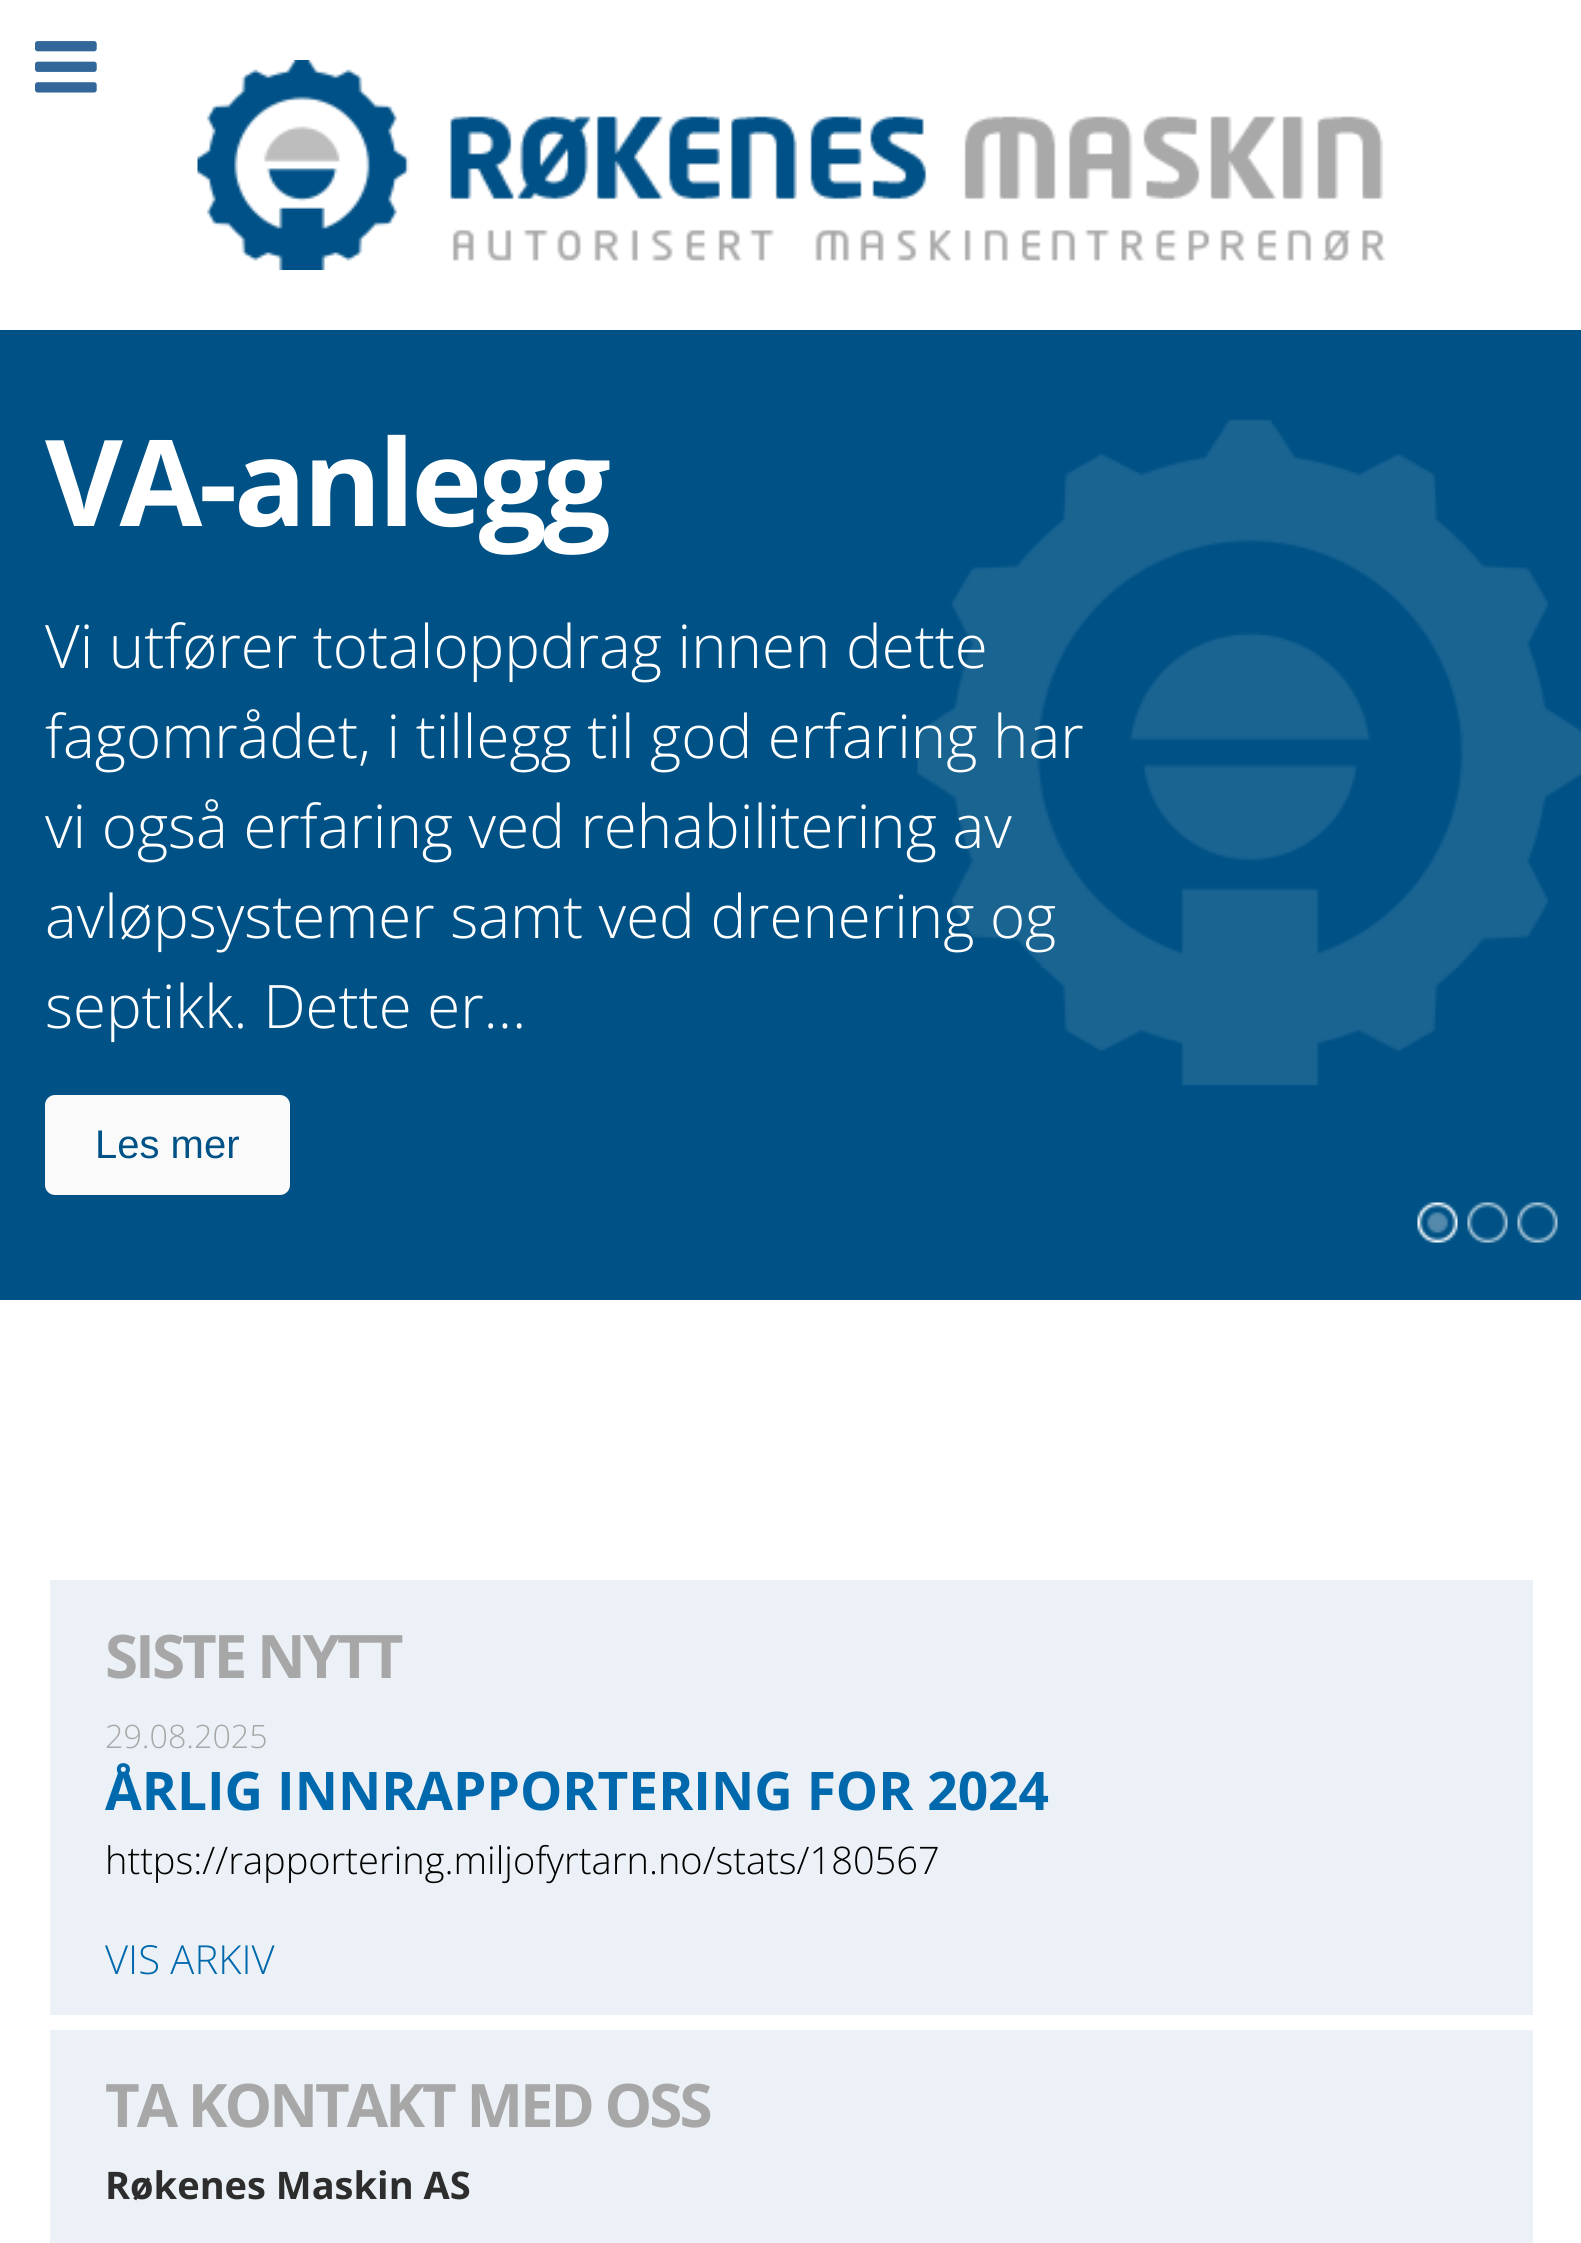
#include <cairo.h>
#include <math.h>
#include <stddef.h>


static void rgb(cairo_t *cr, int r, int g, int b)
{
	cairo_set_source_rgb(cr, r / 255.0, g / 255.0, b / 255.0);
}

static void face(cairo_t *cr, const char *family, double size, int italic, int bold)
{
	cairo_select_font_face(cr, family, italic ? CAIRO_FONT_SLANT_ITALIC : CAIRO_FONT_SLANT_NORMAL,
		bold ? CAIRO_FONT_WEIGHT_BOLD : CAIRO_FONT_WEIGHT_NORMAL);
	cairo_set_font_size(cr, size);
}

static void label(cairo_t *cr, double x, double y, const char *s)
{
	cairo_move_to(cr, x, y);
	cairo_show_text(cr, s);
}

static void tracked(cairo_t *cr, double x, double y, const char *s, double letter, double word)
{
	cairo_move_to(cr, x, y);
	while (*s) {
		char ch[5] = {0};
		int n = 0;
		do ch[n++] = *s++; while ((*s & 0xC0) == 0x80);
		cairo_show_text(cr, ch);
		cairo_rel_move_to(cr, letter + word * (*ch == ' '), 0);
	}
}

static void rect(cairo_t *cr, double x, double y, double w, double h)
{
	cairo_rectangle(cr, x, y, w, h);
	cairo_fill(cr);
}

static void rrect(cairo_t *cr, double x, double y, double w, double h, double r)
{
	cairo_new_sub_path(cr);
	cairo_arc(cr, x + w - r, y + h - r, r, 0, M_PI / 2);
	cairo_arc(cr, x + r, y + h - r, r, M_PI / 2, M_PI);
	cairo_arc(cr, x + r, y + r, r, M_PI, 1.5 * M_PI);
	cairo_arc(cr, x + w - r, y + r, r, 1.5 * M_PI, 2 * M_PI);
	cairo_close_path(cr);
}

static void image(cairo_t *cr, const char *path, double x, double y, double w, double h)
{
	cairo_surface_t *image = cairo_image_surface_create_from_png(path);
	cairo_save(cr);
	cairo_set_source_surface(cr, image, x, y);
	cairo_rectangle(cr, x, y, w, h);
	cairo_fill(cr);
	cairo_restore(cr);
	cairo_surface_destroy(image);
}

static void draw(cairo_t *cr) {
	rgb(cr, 255, 255, 255);
	cairo_paint(cr);
	image(cr, "image0.png", 35, 41, 62, 52);
	image(cr, "image1.png", 197, 60, 1188, 210);
	rgb(cr, 0, 82, 134);
	rect(cr, 0, 330, 1581, 970);
	image(cr, "image2.png", 917, 419, 664, 667);
	face(cr, "Open Sans", 120, 0, 1);
	rgb(cr, 255, 255, 255);
	tracked(cr, 45, 526, "VA-anlegg", -3.5, 0);
	face(cr, "Open Sans Light", 60, 0, 0);
	label(cr, 45, 668, "Vi utfører totaloppdrag innen dette");
	label(cr, 45, 758, "fagområdet, i tillegg til god erfaring har");
	label(cr, 45, 848, "vi også erfaring ved rehabilitering av");
	label(cr, 45, 938, "avløpsystemer samt ved drenering og");
	label(cr, 45, 1028, "septikk. Dette er...");
	rgb(cr, 250, 250, 250);
	rrect(cr, 45, 1095, 245, 100, 10);
	cairo_fill(cr);
	face(cr, "Liberation Sans", 40, 0, 0);
	rgb(cr, 0, 82, 134);
	label(cr, 95, 1158, "Les mer");
	image(cr, "image3.png", 1417, 1202, 41, 41);
	image(cr, "image4.png", 1467, 1202, 41, 41);
	image(cr, "image4.png", 1517, 1202, 41, 41);
	rgb(cr, 235, 241, 246);
	rect(cr, 50, 1580, 1483, 435);
	face(cr, "Open Sans", 60, 0, 1);
	rgb(cr, 168, 167, 167);
	tracked(cr, 105, 1678, "SISTE NYTT", -3, 0);
	face(cr, "Open Sans Light", 32.25, 0, 0);
	label(cr, 105, 1748, "29.08.2025");
	face(cr, "Open Sans", 53.25, 0, 1);
	rgb(cr, 0, 104, 172);
	label(cr, 105, 1810, "ÅRLIG INNRAPPORTERING FOR 2024");
	face(cr, "Open Sans Light", 38, 0, 0);
	rgb(cr, 0, 0, 0);
	label(cr, 105, 1874, "https://rapportering.miljofyrtarn.no/stats/180567");
	face(cr, "Open Sans Light", 40, 0, 0);
	rgb(cr, 0, 104, 172);
	label(cr, 105, 1974, "VIS ARKIV");
	rgb(cr, 235, 241, 246);
	rect(cr, 50, 2030, 1483, 213);
	face(cr, "Open Sans", 60, 0, 1);
	rgb(cr, 168, 167, 167);
	tracked(cr, 105, 2127, "TA KONTAKT MED OSS", -3, 0);
	face(cr, "Open Sans", 38, 0, 1);
	rgb(cr, 45, 45, 45);
	label(cr, 105, 2199, "Røkenes Maskin AS");
}

int main(void) {
	cairo_surface_t *surface = cairo_image_surface_create(CAIRO_FORMAT_RGB24, 1581, 2243);
	cairo_t *cr = cairo_create(surface);
	cairo_font_options_t *options = cairo_font_options_create();
	cairo_font_options_set_hint_metrics(options, CAIRO_HINT_METRICS_OFF);
	cairo_font_options_set_hint_style(options, CAIRO_HINT_STYLE_NONE);
	cairo_set_font_options(cr, options);
	cairo_set_miter_limit(cr, 4);
	draw(cr);
	cairo_surface_write_to_png(surface, "render.png");
	cairo_font_options_destroy(options);
	cairo_destroy(cr);
	cairo_surface_destroy(surface);
	return 0;
}
